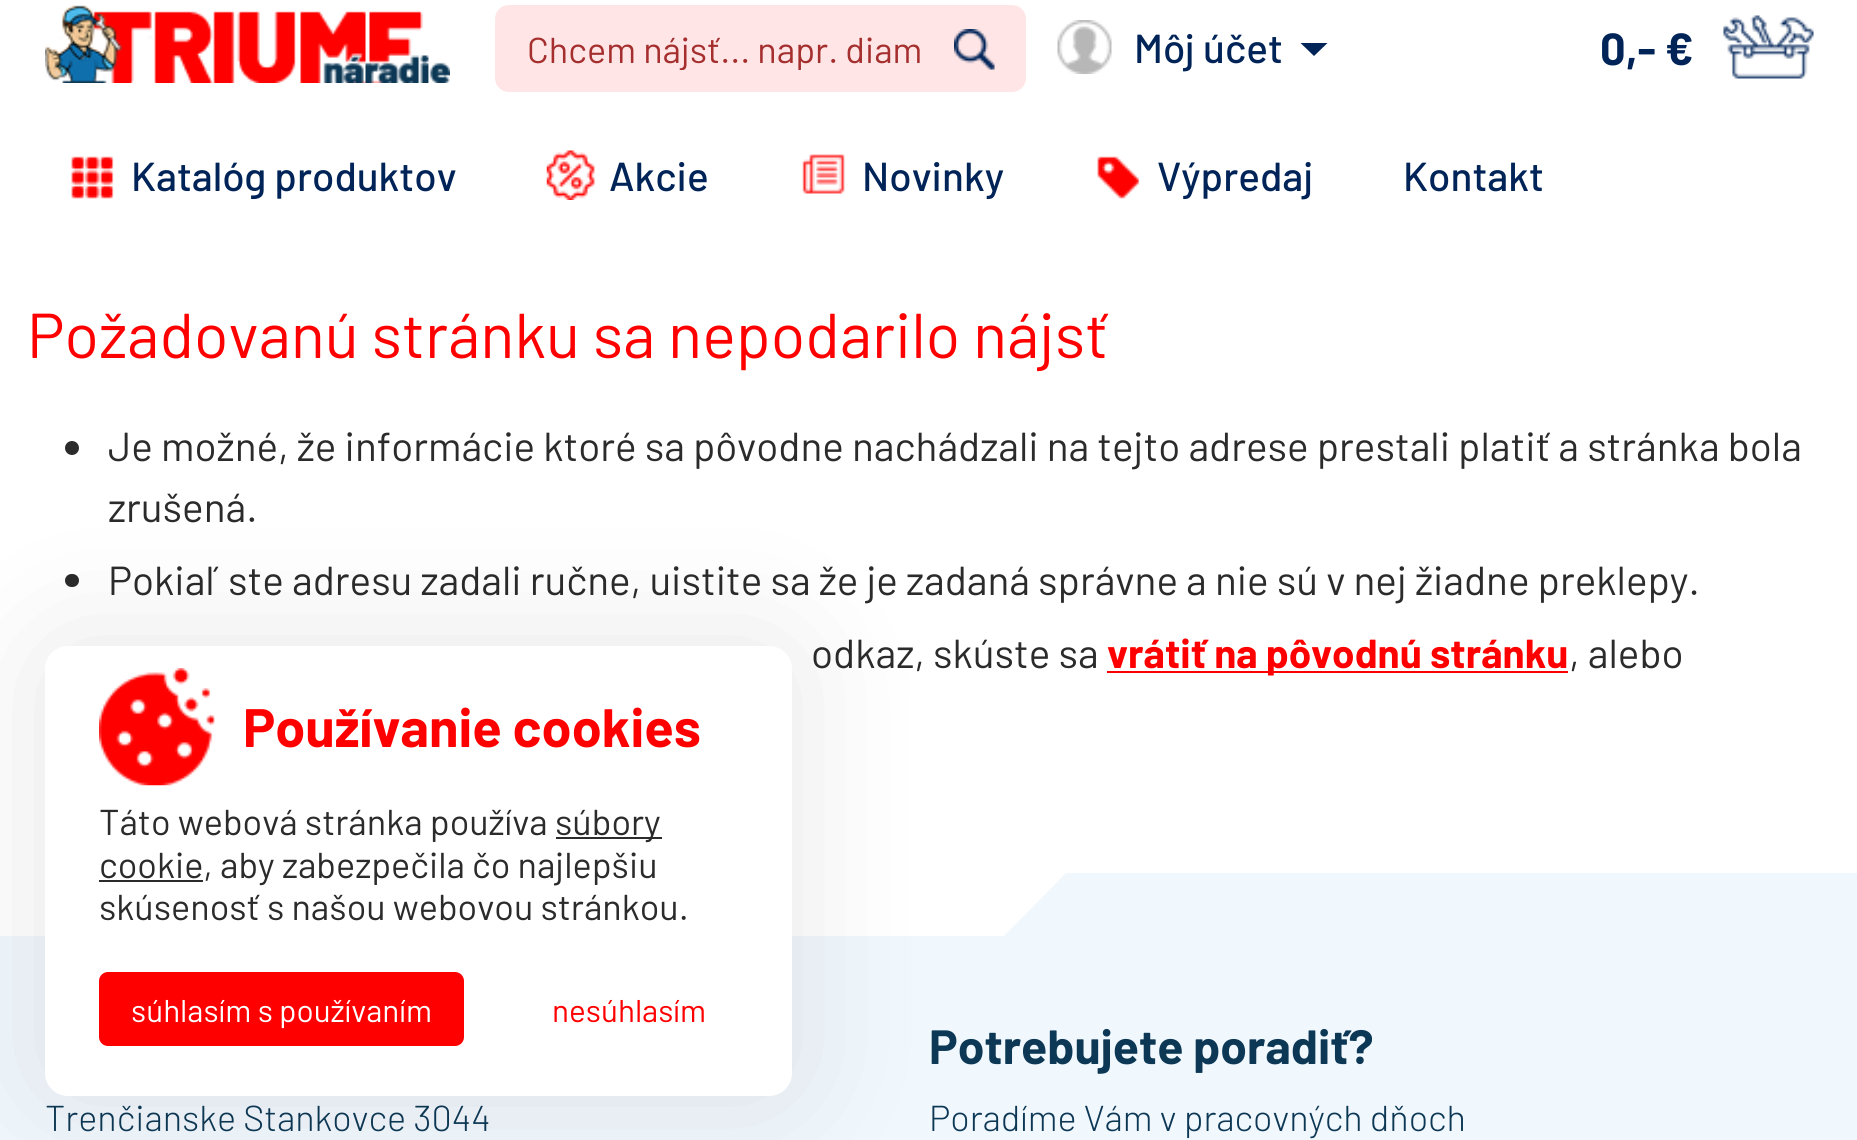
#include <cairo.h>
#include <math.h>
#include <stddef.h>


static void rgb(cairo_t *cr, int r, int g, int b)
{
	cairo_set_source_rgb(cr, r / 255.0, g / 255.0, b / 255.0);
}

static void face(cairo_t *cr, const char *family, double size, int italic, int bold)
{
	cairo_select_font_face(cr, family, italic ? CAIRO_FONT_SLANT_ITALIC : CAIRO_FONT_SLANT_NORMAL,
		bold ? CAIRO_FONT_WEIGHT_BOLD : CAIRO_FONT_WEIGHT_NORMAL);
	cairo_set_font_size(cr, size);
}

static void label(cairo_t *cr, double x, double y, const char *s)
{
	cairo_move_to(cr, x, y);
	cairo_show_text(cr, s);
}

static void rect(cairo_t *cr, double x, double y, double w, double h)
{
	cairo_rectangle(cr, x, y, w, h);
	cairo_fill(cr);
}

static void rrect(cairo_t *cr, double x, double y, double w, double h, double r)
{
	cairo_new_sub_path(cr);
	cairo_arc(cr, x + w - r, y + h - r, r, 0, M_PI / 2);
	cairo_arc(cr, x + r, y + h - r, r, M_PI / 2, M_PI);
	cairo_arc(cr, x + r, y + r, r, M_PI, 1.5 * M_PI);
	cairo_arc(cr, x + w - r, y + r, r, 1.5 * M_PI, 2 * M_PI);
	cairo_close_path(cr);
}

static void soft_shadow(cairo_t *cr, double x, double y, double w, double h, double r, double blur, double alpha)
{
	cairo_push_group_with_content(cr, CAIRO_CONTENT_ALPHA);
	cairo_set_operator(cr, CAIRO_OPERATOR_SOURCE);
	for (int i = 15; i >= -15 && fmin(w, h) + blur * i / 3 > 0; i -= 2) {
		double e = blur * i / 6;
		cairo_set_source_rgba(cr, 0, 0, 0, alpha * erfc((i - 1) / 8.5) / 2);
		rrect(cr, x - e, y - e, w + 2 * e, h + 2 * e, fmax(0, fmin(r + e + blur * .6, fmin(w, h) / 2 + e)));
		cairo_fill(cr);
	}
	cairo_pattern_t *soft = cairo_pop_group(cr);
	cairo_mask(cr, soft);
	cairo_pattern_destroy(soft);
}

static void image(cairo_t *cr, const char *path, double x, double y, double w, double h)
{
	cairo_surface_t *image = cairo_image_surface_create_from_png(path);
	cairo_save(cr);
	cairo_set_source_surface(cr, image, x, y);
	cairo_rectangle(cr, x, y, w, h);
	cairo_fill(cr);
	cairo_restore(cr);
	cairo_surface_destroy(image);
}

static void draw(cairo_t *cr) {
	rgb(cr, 255, 255, 255);
	cairo_paint(cr);
	image(cr, "image0.png", 45, 5, 405, 78);
	rgb(cr, 255, 229, 229);
	rrect(cr, 495, 5, 531, 87, 14);
	cairo_fill(cr);
	cairo_save(cr);
	cairo_rectangle(cr, 527, 27, 400, 43);
	cairo_clip(cr);
	face(cr, "Barlow", 36, 0, 0);
	rgb(cr, 165, 47, 47);
	label(cr, 527, 63, "Chcem nájsť... napr. diam");
	cairo_restore(cr);
	image(cr, "image1.png", 954, 29, 41, 41);
	image(cr, "image2.png", 1057, 20, 55, 54);
	face(cr, "Barlow Medium", 40.5, 0, 0);
	rgb(cr, 0, 36, 88);
	label(cr, 1134, 63, "Môj účet");
	cairo_new_path(cr);
	cairo_move_to(cr, 1300.5, 43);
	cairo_line_to(cr, 1327.5, 43);
	cairo_line_to(cr, 1314, 56);
	cairo_close_path(cr);
	cairo_fill(cr);
	face(cr, "Barlow", 45, 0, 1);
	label(cr, 1600, 65, "0,- €");
	image(cr, "image3.png", 1723, 15, 91, 64);
	image(cr, "image4.png", 71, 156, 43, 43);
	face(cr, "Barlow Medium", 40.5, 0, 0);
	label(cr, 131, 191, "Katalóg produktov");
	image(cr, "image5.png", 546, 150, 49, 50);
	label(cr, 609, 191, "Akcie");
	image(cr, "image6.png", 802, 154, 43, 40);
	label(cr, 862, 191, "Novinky");
	image(cr, "image7.png", 1097, 156, 43, 43);
	label(cr, 1157, 191, "Výpredaj");
	label(cr, 1403, 191, "Kontakt");
	face(cr, "Barlow", 63.25, 0, 0);
	rgb(cr, 255, 0, 0);
	label(cr, 27, 358, "Požadovanú stránku sa nepodarilo nájsť");
	rgb(cr, 43, 43, 43);
	cairo_new_path(cr);
	cairo_arc(cr, 72, 448, 7, 0, 2 * M_PI);
	cairo_fill(cr);
	face(cr, "Barlow", 40.5, 0, 0);
	label(cr, 108, 461, "Je možné, že informácie ktoré sa pôvodne nachádzali na tejto adrese prestali platiť a stránka bola");
	label(cr, 108, 522, "zrušená.");
	rrect(cr, 65, 574, 14, 13, 6.5);
	cairo_fill(cr);
	label(cr, 108, 595, "Pokiaľ ste adresu zadali ručne, uistite sa že je zadaná správne a nie sú v nej žiadne preklepy.");
	label(cr, 811, 668, "odkaz, skúste sa");
	rgb(cr, 255, 0, 0);
	rect(cr, 1107, 671, 461, 2);
	face(cr, "Barlow", 40.5, 0, 1);
	label(cr, 1107, 668, "vrátiť na pôvodnú stránku");
	face(cr, "Barlow", 40.5, 0, 0);
	rgb(cr, 43, 43, 43);
	label(cr, 1569, 668, ", alebo");
	rgb(cr, 240, 247, 253);
	cairo_new_path(cr);
	cairo_move_to(cr, 0, 936);
	cairo_line_to(cr, 0, 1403);
	cairo_line_to(cr, 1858, 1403);
	cairo_line_to(cr, 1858, 873);
	cairo_line_to(cr, 1066, 873);
	cairo_line_to(cr, 1004, 936);
	cairo_close_path(cr);
	cairo_fill(cr);
	face(cr, "Barlow Light", 36, 0, 0);
	rgb(cr, 13, 56, 85);
	label(cr, 45, 1131, "Trenčianske Stankovce 3044");
	face(cr, "Barlow", 48, 0, 1);
	label(cr, 929, 1064, "Potrebujete poradiť?");
	face(cr, "Barlow Light", 36, 0, 0);
	label(cr, 929, 1131, "Poradíme Vám v pracovných dňoch");
	rgb(cr, 0, 0, 0);
	soft_shadow(cr, 45, 646, 747, 450, 23, 65, 0.1);
	rgb(cr, 255, 255, 255);
	rrect(cr, 45, 646, 747, 450, 23);
	cairo_fill(cr);
	image(cr, "image8.png", 99, 668, 116, 118);
	face(cr, "Barlow", 54, 0, 1);
	rgb(cr, 255, 0, 0);
	label(cr, 243, 747, "Používanie cookies");
	face(cr, "Barlow", 36, 0, 0);
	rgb(cr, 43, 43, 43);
	label(cr, 99, 835, "Táto webová stránka používa");
	rect(cr, 556, 837, 106, 2);
	label(cr, 555, 835, "súbory");
	rect(cr, 99, 880, 104, 2);
	label(cr, 99, 878, "cookie, aby zabezpečila čo najlepšiu");
	label(cr, 99, 920, "skúsenosť s našou webovou stránkou.");
	rgb(cr, 255, 0, 0);
	rrect(cr, 99, 972, 365, 74, 9);
	cairo_fill(cr);
	face(cr, "Barlow", 31.5, 0, 0);
	rgb(cr, 255, 255, 255);
	label(cr, 131, 1022, "súhlasím s používaním");
	rgb(cr, 255, 0, 0);
	label(cr, 552, 1022, "nesúhlasím");
}

int main(void) {
	cairo_surface_t *surface = cairo_image_surface_create(CAIRO_FORMAT_RGB24, 1857, 1140);
	cairo_t *cr = cairo_create(surface);
	cairo_font_options_t *options = cairo_font_options_create();
	cairo_font_options_set_hint_metrics(options, CAIRO_HINT_METRICS_OFF);
	cairo_font_options_set_hint_style(options, CAIRO_HINT_STYLE_NONE);
	cairo_set_font_options(cr, options);
	cairo_set_miter_limit(cr, 4);
	draw(cr);
	cairo_surface_write_to_png(surface, "render.png");
	cairo_font_options_destroy(options);
	cairo_destroy(cr);
	cairo_surface_destroy(surface);
	return 0;
}
